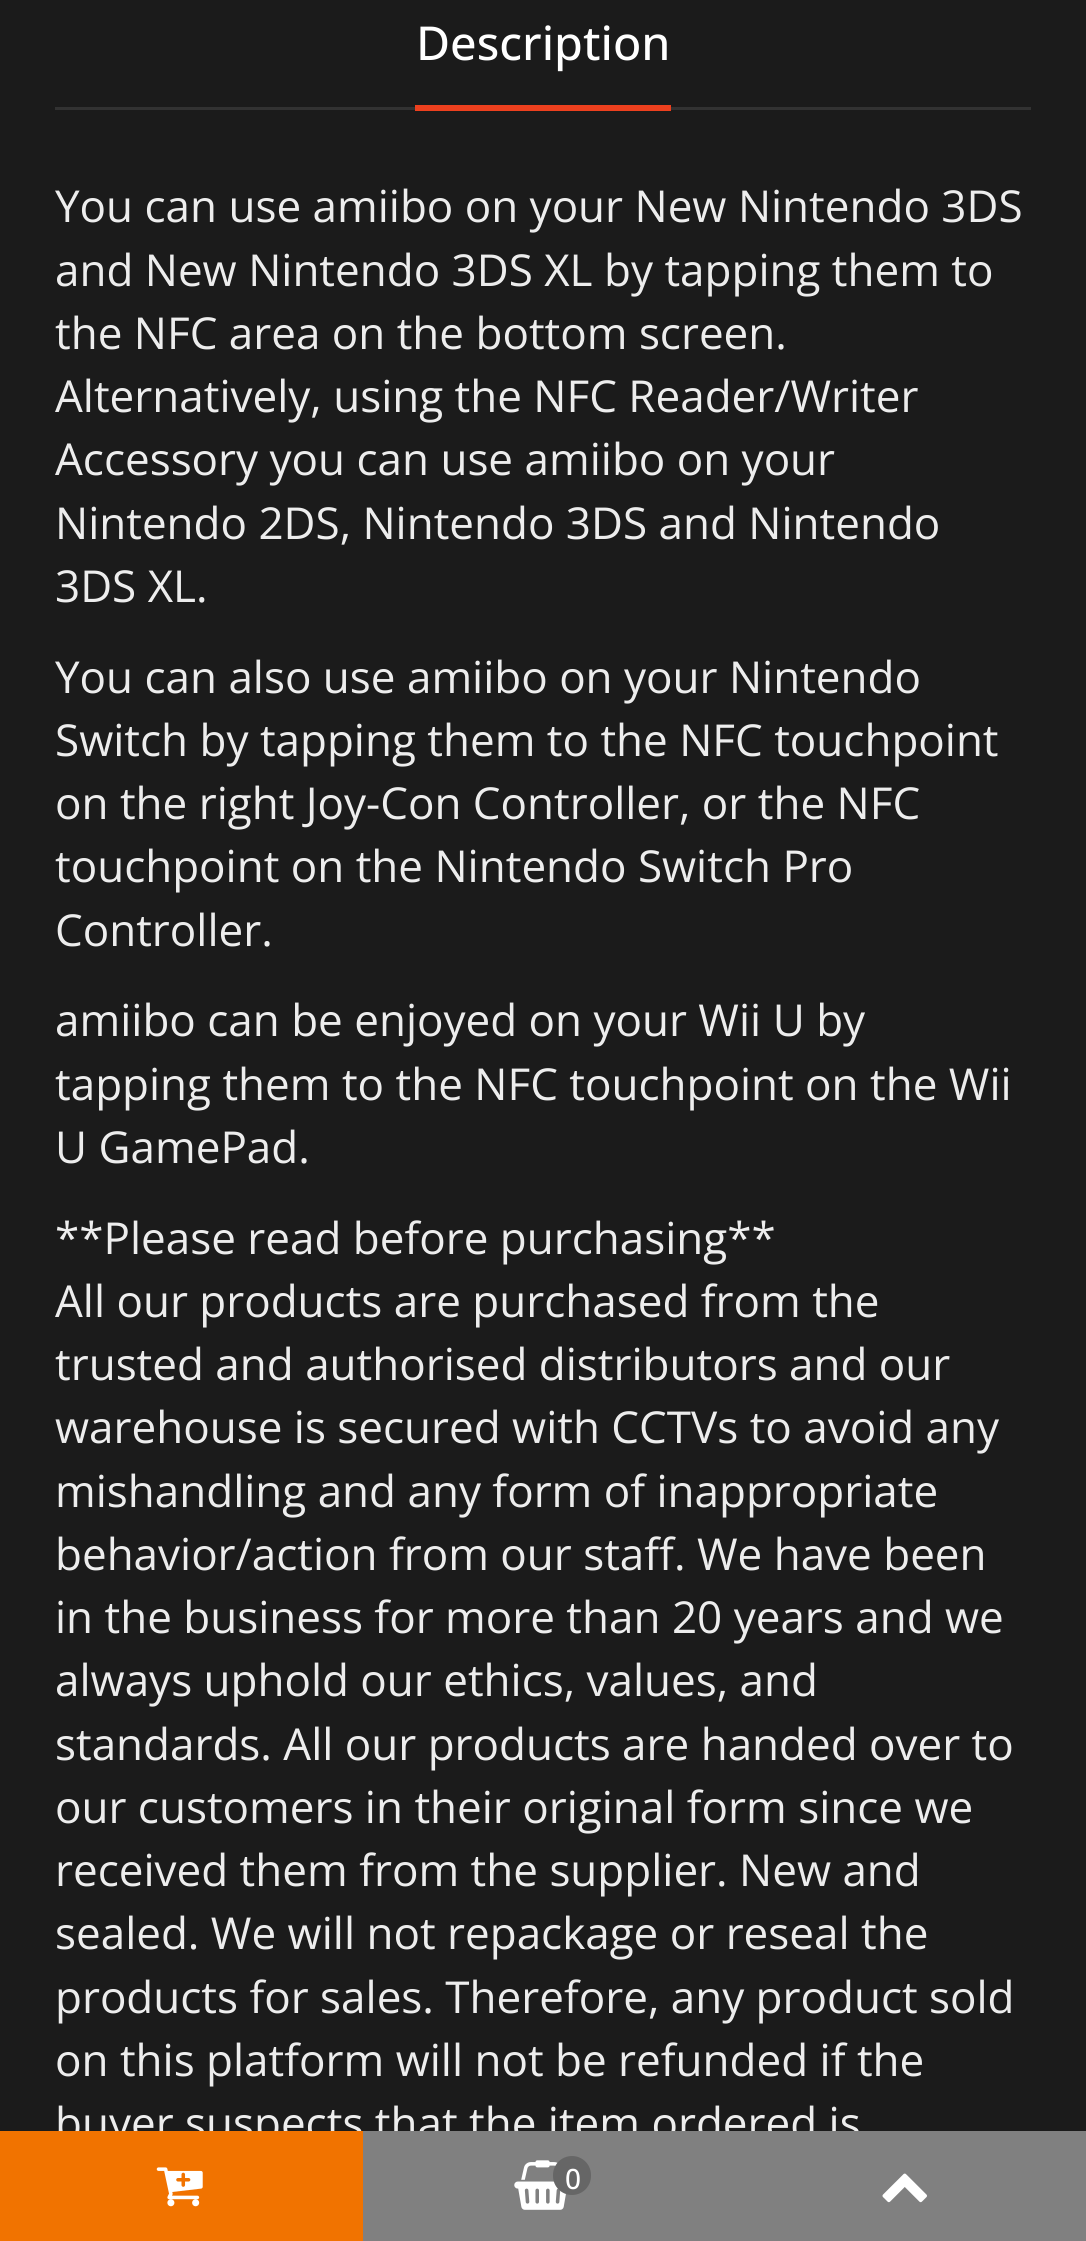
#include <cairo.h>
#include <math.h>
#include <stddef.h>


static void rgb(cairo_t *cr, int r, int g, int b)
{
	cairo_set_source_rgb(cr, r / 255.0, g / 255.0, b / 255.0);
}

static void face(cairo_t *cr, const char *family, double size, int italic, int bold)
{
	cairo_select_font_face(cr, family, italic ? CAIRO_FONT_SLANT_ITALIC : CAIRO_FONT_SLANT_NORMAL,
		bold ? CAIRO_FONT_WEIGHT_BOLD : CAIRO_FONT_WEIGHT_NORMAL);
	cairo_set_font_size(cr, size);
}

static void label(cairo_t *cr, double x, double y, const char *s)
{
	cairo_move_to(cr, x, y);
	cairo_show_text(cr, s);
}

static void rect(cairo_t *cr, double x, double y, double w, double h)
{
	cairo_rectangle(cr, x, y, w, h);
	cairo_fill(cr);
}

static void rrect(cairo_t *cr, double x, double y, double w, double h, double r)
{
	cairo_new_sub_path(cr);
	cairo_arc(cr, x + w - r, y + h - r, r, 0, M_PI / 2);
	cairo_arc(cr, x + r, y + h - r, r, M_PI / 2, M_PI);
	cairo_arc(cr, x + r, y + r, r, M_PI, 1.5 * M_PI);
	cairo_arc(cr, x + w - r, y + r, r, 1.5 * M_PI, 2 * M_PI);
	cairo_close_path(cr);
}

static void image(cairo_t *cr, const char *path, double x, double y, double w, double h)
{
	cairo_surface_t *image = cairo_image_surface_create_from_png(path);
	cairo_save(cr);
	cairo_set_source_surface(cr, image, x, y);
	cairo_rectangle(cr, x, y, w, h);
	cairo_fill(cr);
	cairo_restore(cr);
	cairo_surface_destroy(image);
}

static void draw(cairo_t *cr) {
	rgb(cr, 27, 27, 27);
	cairo_paint(cr);
	face(cr, "Open Sans Medium", 46.75, 0, 0);
	rgb(cr, 255, 255, 255);
	label(cr, 416, 60, "Description");
	rgb(cr, 50, 50, 50);
	rect(cr, 55, 107, 976, 3);
	rgb(cr, 237, 64, 30);
	rect(cr, 415, 105, 256, 6);
	face(cr, "Open Sans", 44, 0, 0);
	rgb(cr, 237, 237, 237);
	label(cr, 55, 222, "You can use amiibo on your New Nintendo 3DS");
	label(cr, 55, 286, "and New Nintendo 3DS XL by tapping them to");
	label(cr, 55, 349, "the NFC area on the bottom screen.");
	label(cr, 55, 412, "Alternatively, using the NFC Reader/Writer");
	label(cr, 55, 475, "Accessory you can use amiibo on your");
	label(cr, 55, 539, "Nintendo 2DS, Nintendo 3DS and Nintendo");
	label(cr, 55, 602, "3DS XL.");
	label(cr, 55, 693, "You can also use amiibo on your Nintendo");
	label(cr, 55, 756, "Switch by tapping them to the NFC touchpoint");
	label(cr, 55, 819, "on the right Joy-Con Controller, or the NFC");
	label(cr, 55, 882, "touchpoint on the Nintendo Switch Pro");
	label(cr, 55, 946, "Controller.");
	label(cr, 55, 1036, "amiibo can be enjoyed on your Wii U by");
	label(cr, 55, 1100, "tapping them to the NFC touchpoint on the Wii");
	label(cr, 55, 1163, "U GamePad.");
	label(cr, 55, 1254, "**Please read before purchasing**");
	label(cr, 55, 1317, "All our products are purchased from the");
	label(cr, 55, 1380, "trusted and authorised distributors and our");
	label(cr, 55, 1443, "warehouse is secured with CCTVs to avoid any");
	label(cr, 55, 1507, "mishandling and any form of inappropriate");
	label(cr, 55, 1570, "behavior/action from our staff. We have been");
	label(cr, 55, 1633, "in the business for more than 20 years and we");
	label(cr, 55, 1696, "always uphold our ethics, values, and");
	label(cr, 55, 1760, "standards. All our products are handed over to");
	label(cr, 55, 1823, "our customers in their original form since we");
	label(cr, 55, 1886, "received them from the supplier. New and");
	label(cr, 55, 1949, "sealed. We will not repackage or reseal the");
	label(cr, 55, 2013, "products for sales. Therefore, any product sold");
	label(cr, 55, 2076, "on this platform will not be refunded if the");
	label(cr, 55, 2139, "buyer suspects that the item ordered is");
	rgb(cr, 241, 115, 0);
	rect(cr, 0, 2131, 363, 110);
	image(cr, "image0.png", 156, 2167, 47, 40);
	rgb(cr, 128, 128, 128);
	rect(cr, 363, 2131, 723, 110);
	image(cr, "image1.png", 882, 2173, 45, 30);
	image(cr, "image2.png", 514, 2160, 52, 50);
	rgb(cr, 102, 102, 102);
	rrect(cr, 553, 2156, 38, 39, 19);
	cairo_fill(cr);
	face(cr, "Open Sans Medium", 28, 0, 0);
	rgb(cr, 255, 255, 255);
	label(cr, 565, 2189, "0");
}

int main(void) {
	cairo_surface_t *surface = cairo_image_surface_create(CAIRO_FORMAT_RGB24, 1086, 2241);
	cairo_t *cr = cairo_create(surface);
	cairo_font_options_t *options = cairo_font_options_create();
	cairo_font_options_set_hint_metrics(options, CAIRO_HINT_METRICS_OFF);
	cairo_font_options_set_hint_style(options, CAIRO_HINT_STYLE_NONE);
	cairo_set_font_options(cr, options);
	cairo_set_miter_limit(cr, 4);
	draw(cr);
	cairo_surface_write_to_png(surface, "render.png");
	cairo_font_options_destroy(options);
	cairo_destroy(cr);
	cairo_surface_destroy(surface);
	return 0;
}
